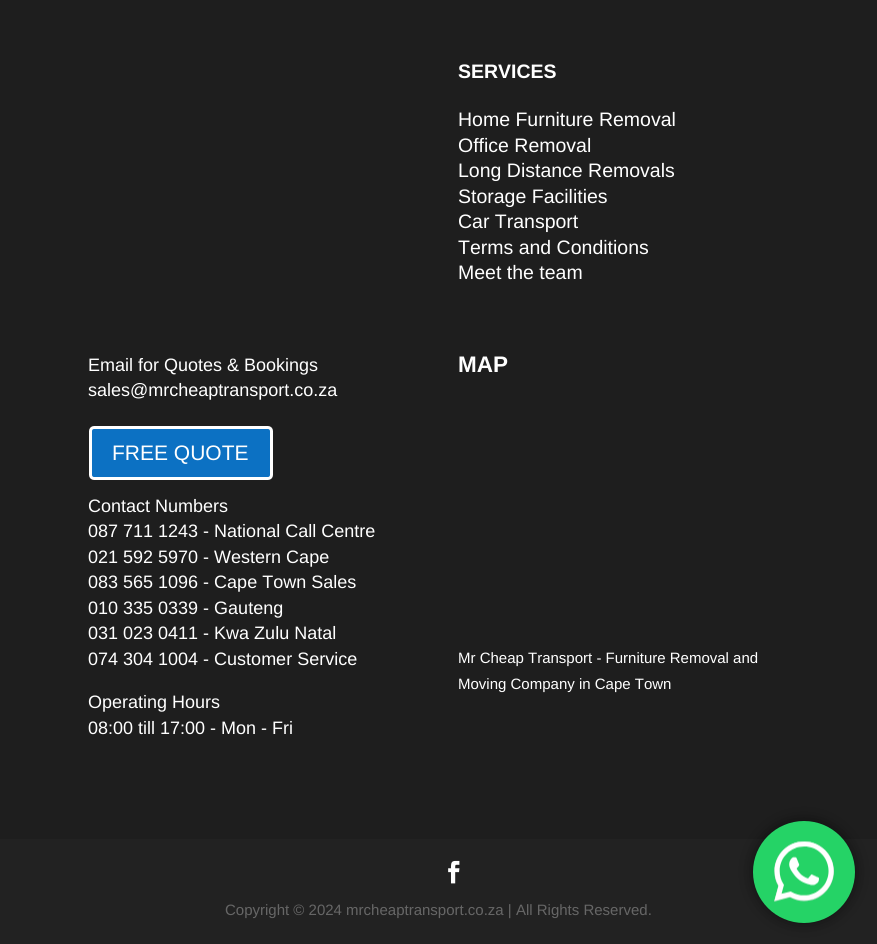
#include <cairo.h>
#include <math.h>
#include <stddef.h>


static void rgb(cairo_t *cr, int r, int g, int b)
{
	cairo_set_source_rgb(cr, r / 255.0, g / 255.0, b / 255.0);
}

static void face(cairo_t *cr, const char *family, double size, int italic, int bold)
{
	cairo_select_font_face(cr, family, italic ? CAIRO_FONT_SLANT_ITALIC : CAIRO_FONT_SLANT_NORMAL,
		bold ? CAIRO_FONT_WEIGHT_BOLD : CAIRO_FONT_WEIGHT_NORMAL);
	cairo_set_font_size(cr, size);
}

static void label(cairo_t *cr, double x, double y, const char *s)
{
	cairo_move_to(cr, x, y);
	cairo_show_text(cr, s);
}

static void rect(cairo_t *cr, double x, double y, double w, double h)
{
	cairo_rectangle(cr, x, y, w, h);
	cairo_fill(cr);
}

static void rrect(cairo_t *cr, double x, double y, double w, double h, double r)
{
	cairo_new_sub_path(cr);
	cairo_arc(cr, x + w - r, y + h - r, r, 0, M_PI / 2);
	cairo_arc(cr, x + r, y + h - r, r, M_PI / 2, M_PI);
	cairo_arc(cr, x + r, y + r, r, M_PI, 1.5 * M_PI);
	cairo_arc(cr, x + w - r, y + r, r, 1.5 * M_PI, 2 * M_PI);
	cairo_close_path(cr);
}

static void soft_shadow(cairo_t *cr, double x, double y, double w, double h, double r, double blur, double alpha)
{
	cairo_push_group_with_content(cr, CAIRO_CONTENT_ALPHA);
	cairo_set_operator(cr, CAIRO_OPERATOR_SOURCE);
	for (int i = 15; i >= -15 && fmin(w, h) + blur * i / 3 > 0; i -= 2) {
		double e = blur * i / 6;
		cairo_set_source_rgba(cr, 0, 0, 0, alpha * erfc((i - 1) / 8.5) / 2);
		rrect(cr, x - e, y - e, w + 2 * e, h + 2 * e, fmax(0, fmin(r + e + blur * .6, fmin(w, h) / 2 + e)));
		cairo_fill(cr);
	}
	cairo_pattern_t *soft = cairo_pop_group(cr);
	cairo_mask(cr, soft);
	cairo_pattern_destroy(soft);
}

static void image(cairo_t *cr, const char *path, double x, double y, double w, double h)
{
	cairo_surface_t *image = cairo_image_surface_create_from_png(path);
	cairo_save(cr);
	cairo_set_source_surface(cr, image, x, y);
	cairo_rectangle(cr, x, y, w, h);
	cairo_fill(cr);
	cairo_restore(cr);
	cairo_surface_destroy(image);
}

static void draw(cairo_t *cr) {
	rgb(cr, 34, 34, 34);
	cairo_paint(cr);
	rgb(cr, 30, 30, 30);
	rect(cr, 0, 0, 877, 839);
	face(cr, "Liberation Sans", 19.5, 0, 1);
	rgb(cr, 255, 255, 255);
	label(cr, 458, 78, "SERVICES");
	face(cr, "Liberation Sans", 19.5, 0, 0);
	label(cr, 458, 126, "Home Furniture Removal");
	label(cr, 458, 152, "Office Removal");
	label(cr, 458, 177, "Long Distance Removals");
	label(cr, 458, 203, "Storage Facilities");
	label(cr, 458, 228, "Car Transport");
	label(cr, 458, 254, "Terms and Conditions");
	label(cr, 458, 279, "Meet the team");
	face(cr, "Liberation Sans", 18, 0, 0);
	label(cr, 88, 371, "Email for Quotes & Bookings");
	label(cr, 88, 396, "sales@mrcheaptransport.co.za");
	rgb(cr, 12, 113, 195);
	rrect(cr, 90.5, 427.5, 181, 51, 3.5);
	cairo_fill_preserve(cr);
	rgb(cr, 255, 255, 255);
	cairo_set_line_width(cr, 3);
	cairo_stroke(cr);
	face(cr, "Liberation Sans", 21, 0, 0);
	label(cr, 112, 460, "FREE QUOTE");
	face(cr, "Liberation Sans", 18, 0, 0);
	label(cr, 88, 512, "Contact Numbers");
	label(cr, 88, 537, "087 711 1243 - National Call Centre");
	label(cr, 88, 563, "021 592 5970 - Western Cape");
	label(cr, 88, 588, "083 565 1096 - Cape Town Sales");
	label(cr, 88, 614, "010 335 0339 - Gauteng");
	label(cr, 88, 639, "031 023 0411 - Kwa Zulu Natal");
	label(cr, 88, 665, "074 304 1004 - Customer Service");
	label(cr, 88, 708, "Operating Hours");
	label(cr, 88, 734, "08:00 till 17:00 - Mon - Fri");
	face(cr, "Liberation Sans", 22.5, 0, 1);
	label(cr, 458, 372, "MAP");
	face(cr, "Liberation Sans", 15, 0, 0);
	label(cr, 458, 663, "Mr Cheap Transport - Furniture Removal and");
	label(cr, 458, 689, "Moving Company in Cape Town");
	image(cr, "image0.png", 448, 860, 12, 24);
	rgb(cr, 102, 102, 102);
	label(cr, 225, 915, "Copyright © 2024 mrcheaptransport.co.za | All Rights Reserved.");
	rgb(cr, 0, 0, 0);
	soft_shadow(cr, 753, 821, 102, 102, 51, 8, 0.5);
	rgb(cr, 37, 211, 102);
	cairo_arc(cr, 804, 872, 51, 0, 2 * M_PI);
	cairo_fill(cr);
	image(cr, "image1.png", 774, 841, 60, 61);
}

int main(void) {
	cairo_surface_t *surface = cairo_image_surface_create(CAIRO_FORMAT_RGB24, 877, 944);
	cairo_t *cr = cairo_create(surface);
	cairo_font_options_t *options = cairo_font_options_create();
	cairo_font_options_set_hint_metrics(options, CAIRO_HINT_METRICS_OFF);
	cairo_font_options_set_hint_style(options, CAIRO_HINT_STYLE_NONE);
	cairo_set_font_options(cr, options);
	cairo_set_miter_limit(cr, 4);
	draw(cr);
	cairo_surface_write_to_png(surface, "render.png");
	cairo_font_options_destroy(options);
	cairo_destroy(cr);
	cairo_surface_destroy(surface);
	return 0;
}
